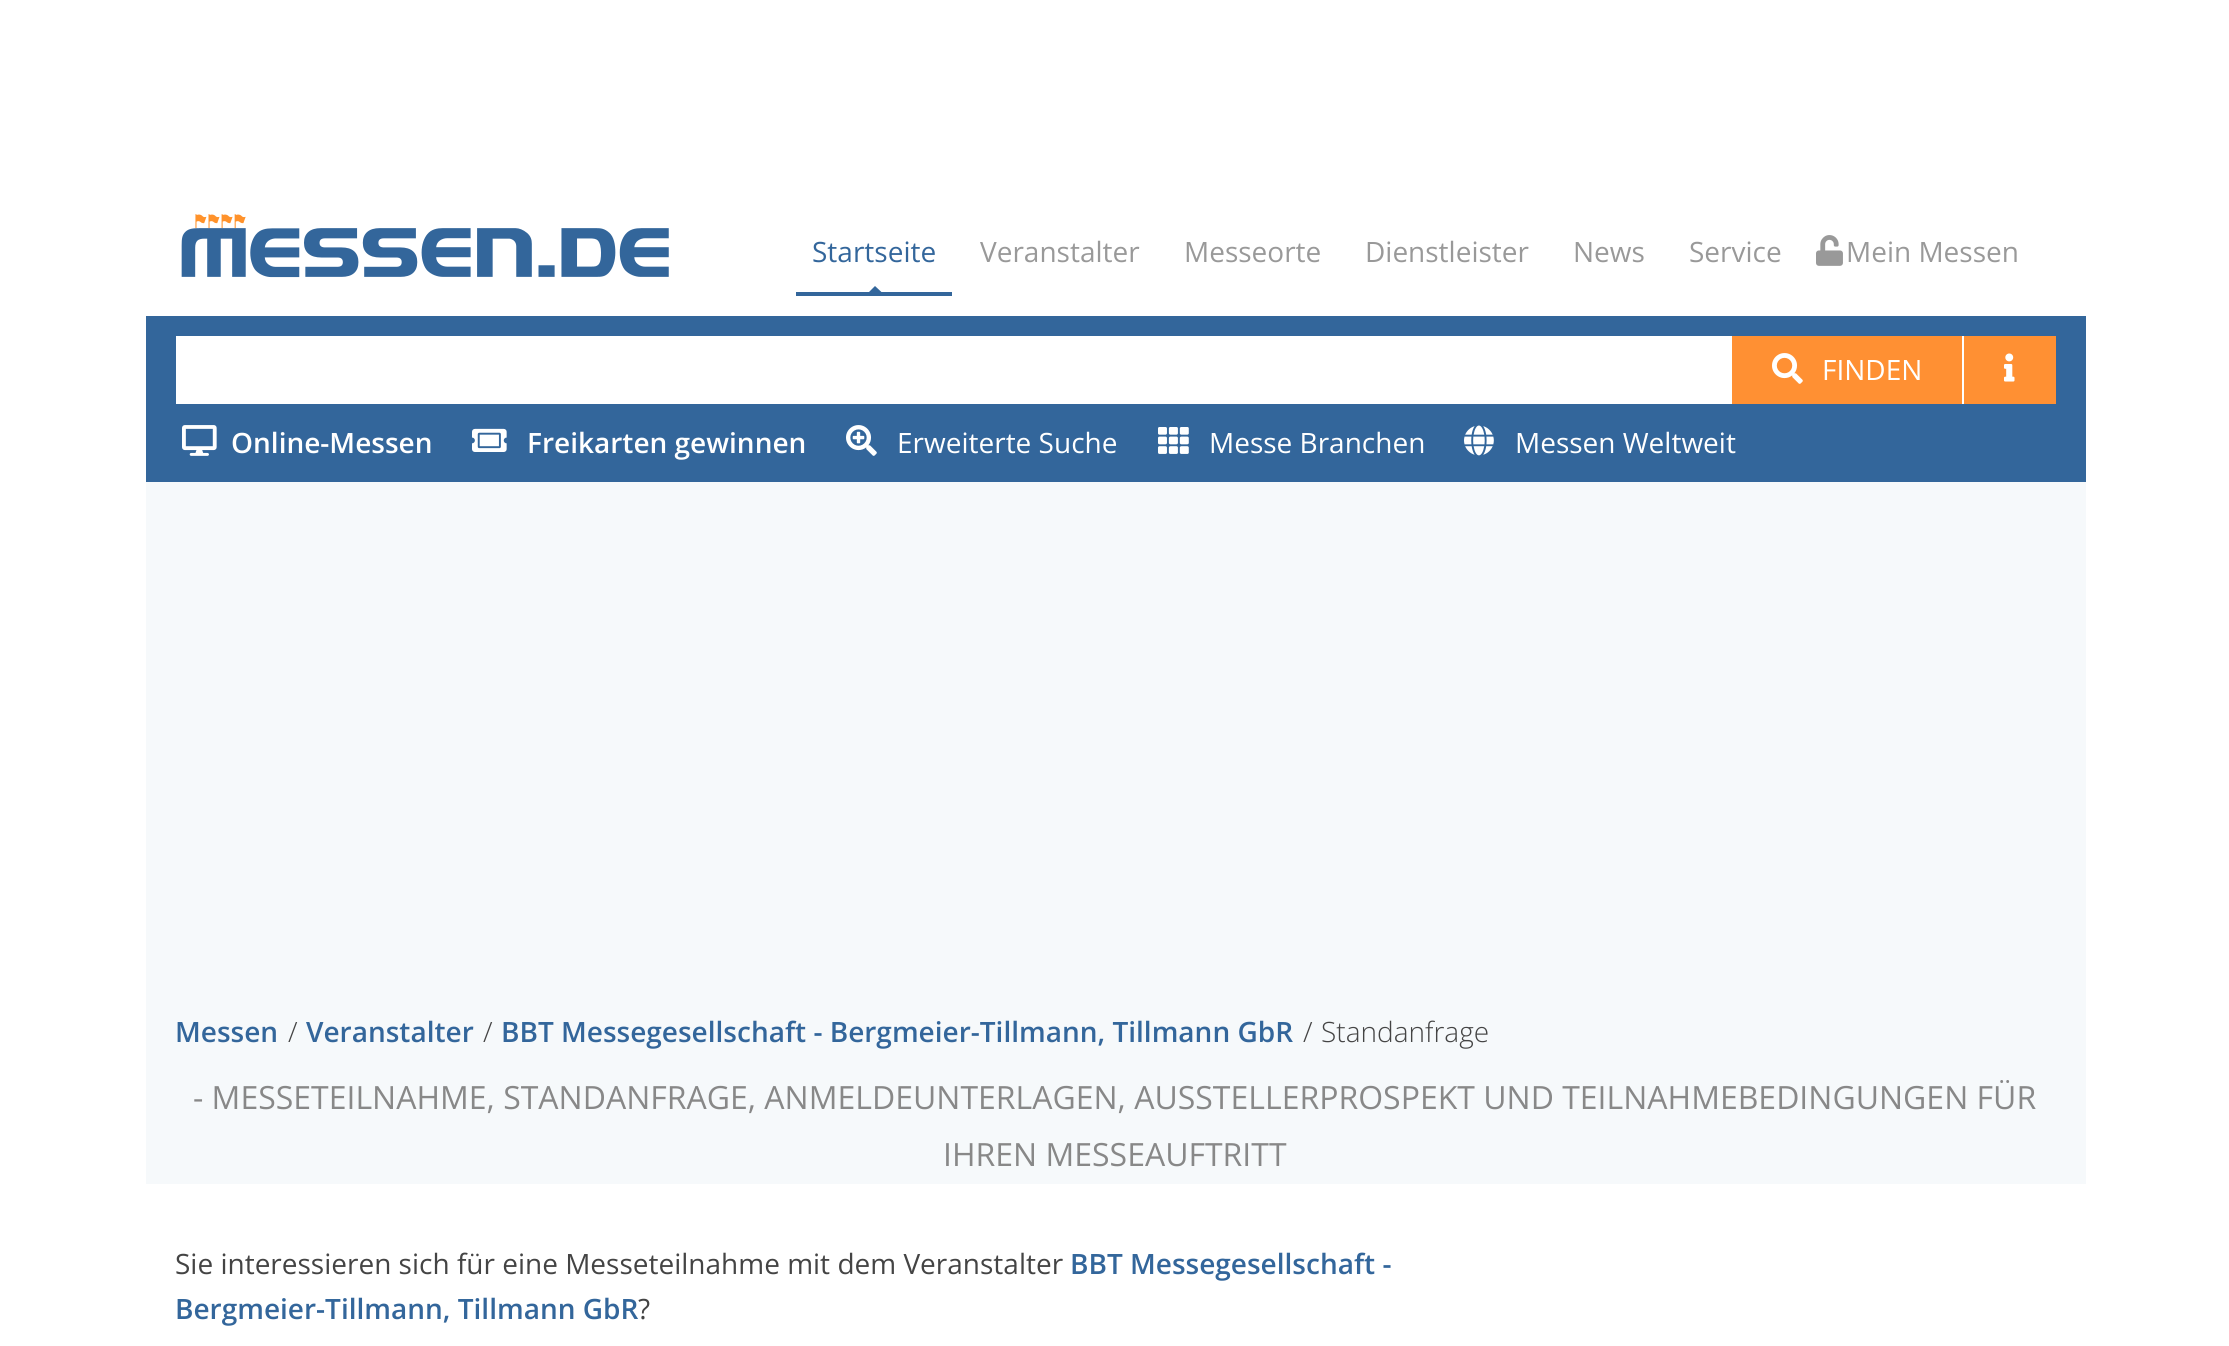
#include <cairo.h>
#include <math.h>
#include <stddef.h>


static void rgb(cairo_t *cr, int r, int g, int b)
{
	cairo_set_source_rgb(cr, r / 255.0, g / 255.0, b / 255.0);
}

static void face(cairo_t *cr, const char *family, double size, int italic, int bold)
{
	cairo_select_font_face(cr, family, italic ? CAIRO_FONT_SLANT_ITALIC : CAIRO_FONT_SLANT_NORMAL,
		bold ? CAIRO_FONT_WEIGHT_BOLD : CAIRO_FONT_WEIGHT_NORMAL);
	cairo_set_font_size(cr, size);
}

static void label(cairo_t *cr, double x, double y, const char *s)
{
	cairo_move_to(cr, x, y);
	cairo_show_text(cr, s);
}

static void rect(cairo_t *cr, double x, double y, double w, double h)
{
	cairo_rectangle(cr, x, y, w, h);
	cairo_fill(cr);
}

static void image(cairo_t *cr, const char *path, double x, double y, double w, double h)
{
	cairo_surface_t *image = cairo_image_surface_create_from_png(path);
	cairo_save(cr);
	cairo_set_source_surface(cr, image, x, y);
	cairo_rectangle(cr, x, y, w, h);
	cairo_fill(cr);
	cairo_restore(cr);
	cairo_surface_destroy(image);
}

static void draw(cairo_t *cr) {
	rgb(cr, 255, 255, 255);
	cairo_paint(cr);
	image(cr, "image0.png", 181, 214, 488, 64);
	rgb(cr, 51, 102, 155);
	rect(cr, 796, 292, 156, 4);
	face(cr, "Open Sans", 28, 0, 0);
	label(cr, 812, 262, "Startseite");
	cairo_save(cr);
	cairo_rectangle(cr, 796, 212, 156, 80);
	cairo_clip(cr);
	cairo_new_path(cr);
	cairo_move_to(cr, 875, 286);
	cairo_line_to(cr, 882.5, 293);
	cairo_line_to(cr, 875, 300);
	cairo_line_to(cr, 868, 293);
	cairo_close_path(cr);
	cairo_fill(cr);
	cairo_restore(cr);
	rgb(cr, 153, 153, 153);
	label(cr, 980, 262, "Veranstalter");
	label(cr, 1184, 262, "Messeorte");
	label(cr, 1365, 262, "Dienstleister");
	label(cr, 1573, 262, "News");
	label(cr, 1689, 262, "Service");
	image(cr, "image1.png", 1816, 235, 27, 31);
	label(cr, 1846, 262, "Mein Messen");
	rgb(cr, 51, 102, 155);
	rect(cr, 146, 316, 1940, 166);
	rgb(cr, 255, 255, 255);
	rect(cr, 176, 336, 1556, 68);
	rgb(cr, 255, 144, 51);
	rect(cr, 1732, 336, 230, 68);
	image(cr, "image2.png", 1772, 353, 31, 31);
	rgb(cr, 255, 255, 255);
	label(cr, 1822, 380, "FINDEN");
	rgb(cr, 255, 144, 51);
	rect(cr, 1964, 336, 92, 68);
	rgb(cr, 255, 255, 255);
	rect(cr, 1962, 336, 2, 68);
	image(cr, "image3.png", 2004, 353, 11, 29);
	image(cr, "image4.png", 182, 425, 35, 31);
	face(cr, "Open Sans SemiBold", 28, 0, 0);
	label(cr, 231, 453, "Online-Messen");
	image(cr, "image5.png", 472, 428, 35, 24);
	label(cr, 527, 453, "Freikarten gewinnen");
	image(cr, "image6.png", 846, 425, 31, 31);
	face(cr, "Open Sans", 28, 0, 0);
	label(cr, 897, 453, "Erweiterte Suche");
	image(cr, "image7.png", 1158, 427, 31, 27);
	label(cr, 1209, 453, "Messe Branchen");
	image(cr, "image8.png", 1464, 425, 30, 31);
	label(cr, 1515, 453, "Messen Weltweit");
	rgb(cr, 246, 249, 251);
	rect(cr, 146, 482, 1940, 702);
	face(cr, "Open Sans SemiBold", 28, 0, 0);
	rgb(cr, 51, 102, 155);
	label(cr, 175, 1042, "Messen");
	face(cr, "Open Sans Light", 28, 0, 0);
	rgb(cr, 68, 68, 68);
	label(cr, 288, 1042, "/");
	face(cr, "Open Sans SemiBold", 28, 0, 0);
	rgb(cr, 51, 102, 155);
	label(cr, 306, 1042, "Veranstalter");
	face(cr, "Open Sans Light", 28, 0, 0);
	rgb(cr, 68, 68, 68);
	label(cr, 483, 1042, "/");
	face(cr, "Open Sans SemiBold", 28, 0, 0);
	rgb(cr, 51, 102, 155);
	label(cr, 501, 1042, "BBT Messegesellschaft - Bergmeier-Tillmann, Tillmann GbR");
	face(cr, "Open Sans Light", 28, 0, 0);
	rgb(cr, 68, 68, 68);
	label(cr, 1303, 1042, "/");
	label(cr, 1321, 1042, "Standanfrage");
	face(cr, "Open Sans", 32, 0, 0);
	rgb(cr, 136, 136, 136);
	label(cr, 193, 1109, "- MESSETEILNAHME, STANDANFRAGE, ANMELDEUNTERLAGEN, AUSSTELLERPROSPEKT UND TEILNAHMEBEDINGUNGEN FÜR");
	label(cr, 943, 1166, "IHREN MESSEAUFTRITT");
	face(cr, "Open Sans", 28, 0, 0);
	rgb(cr, 68, 68, 68);
	label(cr, 175, 1274, "Sie interessieren sich für eine Messeteilnahme mit dem Veranstalter");
	face(cr, "Open Sans SemiBold", 28, 0, 0);
	rgb(cr, 51, 102, 155);
	label(cr, 1070, 1274, "BBT Messegesellschaft -");
	label(cr, 175, 1319, "Bergmeier-Tillmann, Tillmann GbR");
	face(cr, "Open Sans", 28, 0, 0);
	rgb(cr, 68, 68, 68);
	label(cr, 638, 1319, "?");
}

int main(void) {
	cairo_surface_t *surface = cairo_image_surface_create(CAIRO_FORMAT_RGB24, 2229, 1346);
	cairo_t *cr = cairo_create(surface);
	cairo_font_options_t *options = cairo_font_options_create();
	cairo_font_options_set_hint_metrics(options, CAIRO_HINT_METRICS_OFF);
	cairo_font_options_set_hint_style(options, CAIRO_HINT_STYLE_NONE);
	cairo_set_font_options(cr, options);
	cairo_set_miter_limit(cr, 4);
	draw(cr);
	cairo_surface_write_to_png(surface, "render.png");
	cairo_font_options_destroy(options);
	cairo_destroy(cr);
	cairo_surface_destroy(surface);
	return 0;
}
